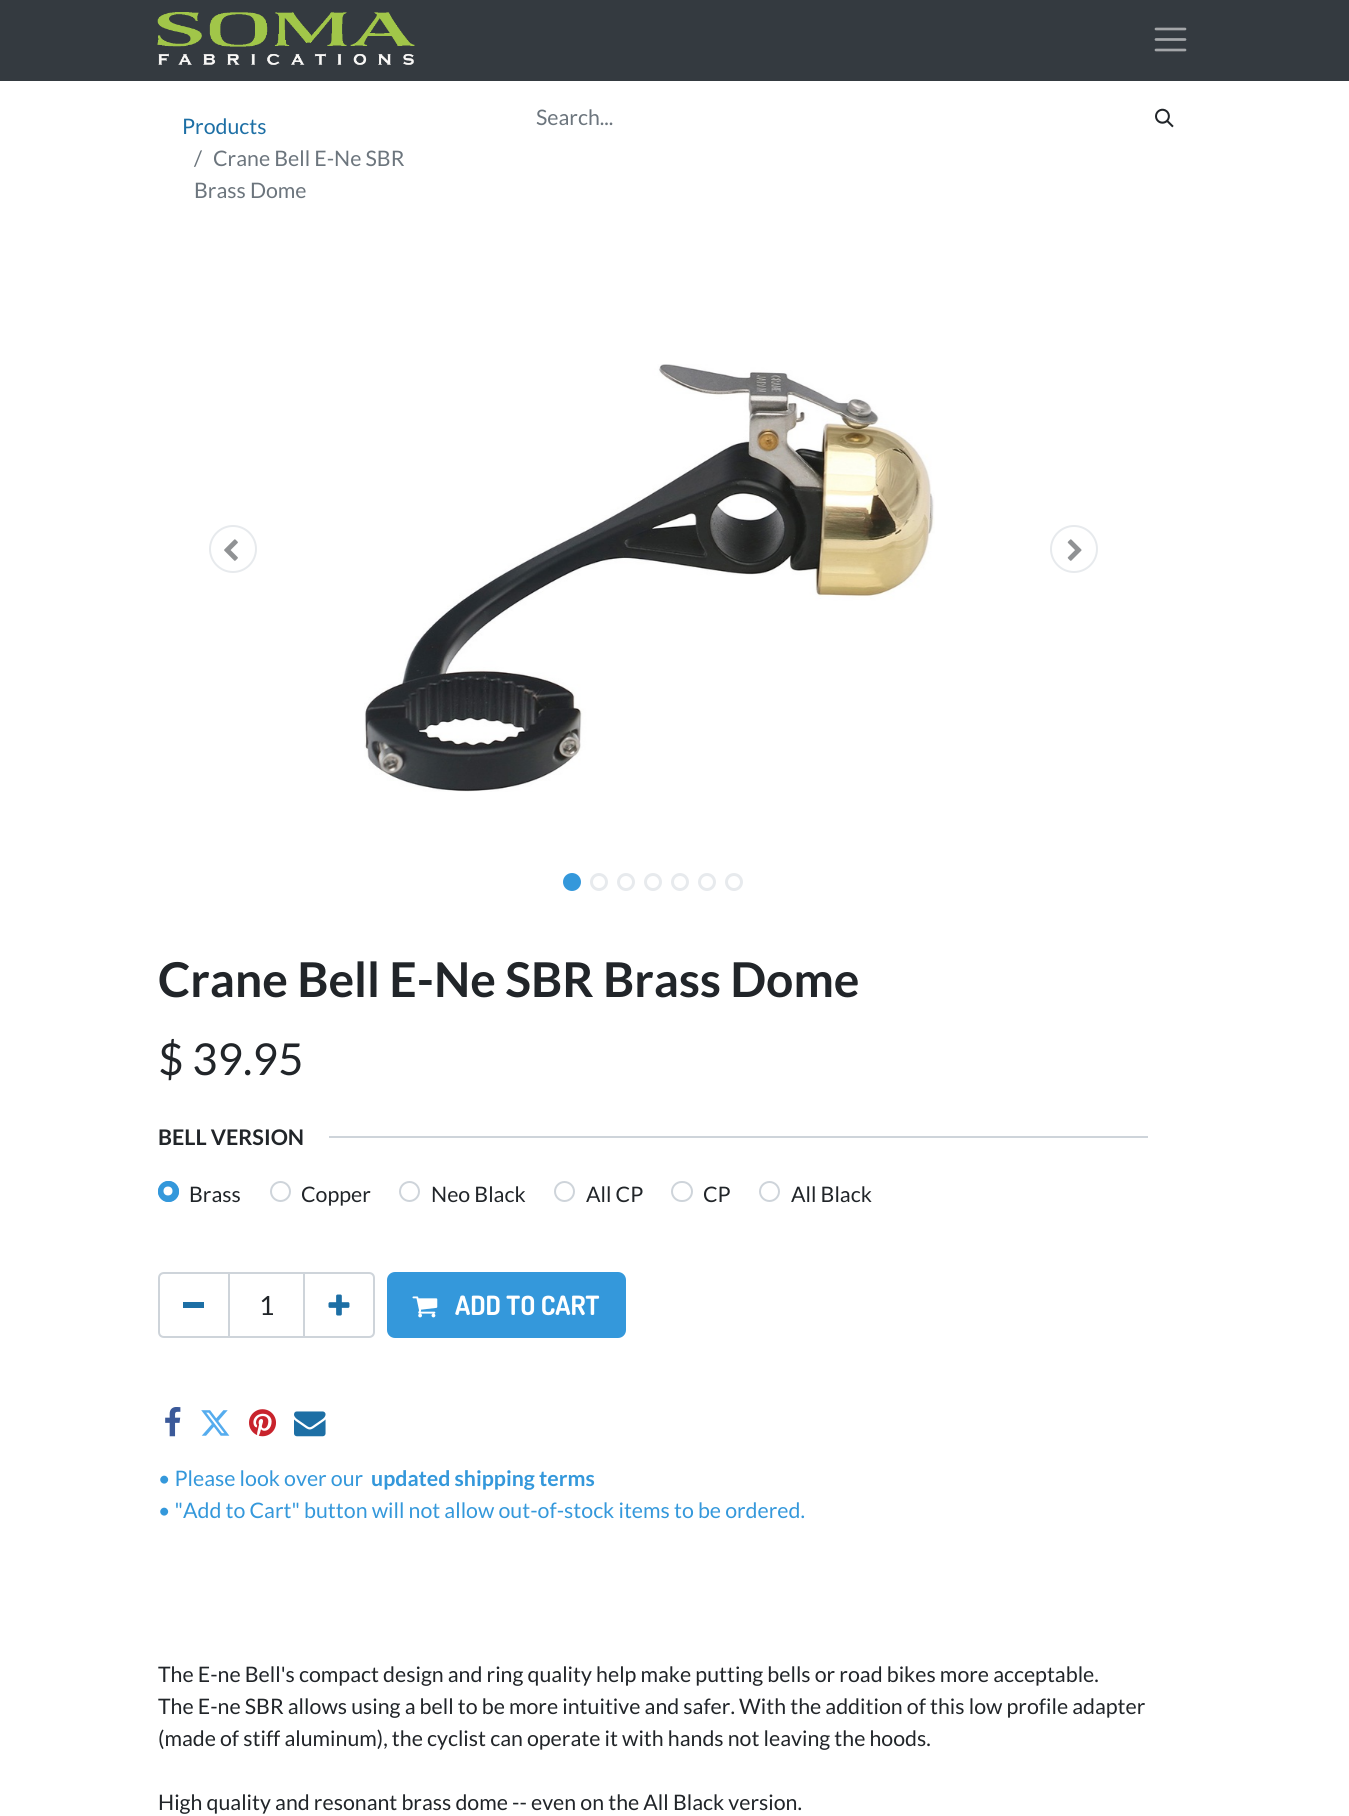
#include <cairo.h>
#include <math.h>
#include <stddef.h>


static void rgb(cairo_t *cr, int r, int g, int b)
{
	cairo_set_source_rgb(cr, r / 255.0, g / 255.0, b / 255.0);
}

static void face(cairo_t *cr, const char *family, double size, int italic, int bold)
{
	cairo_select_font_face(cr, family, italic ? CAIRO_FONT_SLANT_ITALIC : CAIRO_FONT_SLANT_NORMAL,
		bold ? CAIRO_FONT_WEIGHT_BOLD : CAIRO_FONT_WEIGHT_NORMAL);
	cairo_set_font_size(cr, size);
}

static void label(cairo_t *cr, double x, double y, const char *s)
{
	cairo_move_to(cr, x, y);
	cairo_show_text(cr, s);
}

static void rect(cairo_t *cr, double x, double y, double w, double h)
{
	cairo_rectangle(cr, x, y, w, h);
	cairo_fill(cr);
}

static void rrect(cairo_t *cr, double x, double y, double w, double h, double r)
{
	cairo_new_sub_path(cr);
	cairo_arc(cr, x + w - r, y + h - r, r, 0, M_PI / 2);
	cairo_arc(cr, x + r, y + h - r, r, M_PI / 2, M_PI);
	cairo_arc(cr, x + r, y + r, r, M_PI, 1.5 * M_PI);
	cairo_arc(cr, x + w - r, y + r, r, 1.5 * M_PI, 2 * M_PI);
	cairo_close_path(cr);
}

static void image(cairo_t *cr, const char *path, double x, double y, double w, double h)
{
	cairo_surface_t *image = cairo_image_surface_create_from_png(path);
	cairo_save(cr);
	cairo_set_source_surface(cr, image, x, y);
	cairo_rectangle(cr, x, y, w, h);
	cairo_fill(cr);
	cairo_restore(cr);
	cairo_surface_destroy(image);
}

static void draw(cairo_t *cr) {
	rgb(cr, 255, 255, 255);
	cairo_paint(cr);
	rgb(cr, 52, 58, 64);
	rect(cr, 0, 0, 1349, 81);
	image(cr, "image0.png", 157, 12, 258, 53);
	cairo_new_path(cr);
	cairo_move_to(cr, 1156, 29);
	cairo_line_to(cr, 1185, 29);
	cairo_move_to(cr, 1156, 39.5);
	cairo_line_to(cr, 1185, 39.5);
	cairo_move_to(cr, 1156, 50);
	cairo_line_to(cr, 1185, 50);
	rgb(cr, 164, 166, 169);
	cairo_set_line_width(cr, 2.7);
	cairo_set_line_cap(cr, CAIRO_LINE_CAP_ROUND);
	cairo_stroke(cr);
	face(cr, "Lato", 21.35, 0, 0);
	rgb(cr, 29, 111, 165);
	label(cr, 182, 134, "Products");
	rgb(cr, 108, 117, 125);
	label(cr, 194, 166, "/");
	label(cr, 213, 166, "Crane Bell E-Ne SBR");
	label(cr, 194, 198, "Brass Dome");
	label(cr, 536, 125, "Search...");
	image(cr, "image1.png", 1155, 108, 19, 20);
	cairo_arc(cr, 233, 549, 23, 0, 2 * M_PI);
	rgb(cr, 231, 234, 237);
	cairo_set_line_width(cr, 2);
	cairo_set_line_cap(cr, CAIRO_LINE_CAP_BUTT);
	cairo_stroke(cr);
	image(cr, "image2.png", 224, 539, 14, 22);
	image(cr, "image3.png", 364, 364, 571, 428);
	cairo_arc(cr, 1074, 549, 23, 0, 2 * M_PI);
	cairo_stroke(cr);
	image(cr, "image4.png", 1067, 539, 15, 22);
	rgb(cr, 52, 152, 219);
	cairo_arc(cr, 572, 882, 7.5, 0, 2 * M_PI);
	cairo_fill_preserve(cr);
	cairo_set_line_width(cr, 3);
	cairo_stroke(cr);
	cairo_arc(cr, 599, 882, 7.5, 0, 2 * M_PI);
	rgb(cr, 231, 234, 237);
	cairo_stroke(cr);
	cairo_arc(cr, 626, 882, 7.5, 0, 2 * M_PI);
	cairo_stroke(cr);
	cairo_arc(cr, 653, 882, 7.5, 0, 2 * M_PI);
	cairo_stroke(cr);
	cairo_arc(cr, 680, 882, 7.5, 0, 2 * M_PI);
	cairo_stroke(cr);
	cairo_arc(cr, 707, 882, 7.5, 0, 2 * M_PI);
	cairo_stroke(cr);
	cairo_arc(cr, 734, 882, 7.5, 0, 2 * M_PI);
	cairo_stroke(cr);
	face(cr, "Lato", 48, 0, 1);
	rgb(cr, 33, 37, 41);
	label(cr, 158, 997, "Crane Bell E-Ne SBR Brass Dome");
	face(cr, "Lato", 44, 0, 0);
	label(cr, 158, 1075, "$ 39.95");
	face(cr, "Lato", 21.5, 0, 1);
	label(cr, 158, 1145, "BELL VERSION");
	rgb(cr, 206, 212, 218);
	rect(cr, 329, 1136, 819, 2);
	rgb(cr, 52, 152, 219);
	cairo_new_path(cr);
	cairo_arc(cr, 168.5, 1191.5, 10.5, 0, 2 * M_PI);
	cairo_fill(cr);
	rgb(cr, 255, 255, 255);
	cairo_arc(cr, 168, 1191, 4.5, 0, 2 * M_PI);
	cairo_fill(cr);
	cairo_arc(cr, 168.5, 1191.5, 9.5, 0, 2 * M_PI);
	rgb(cr, 52, 152, 219);
	cairo_set_line_width(cr, 2);
	cairo_stroke(cr);
	face(cr, "Lato", 21.35, 0, 0);
	rgb(cr, 33, 37, 41);
	label(cr, 189, 1202, "Brass");
	cairo_new_path(cr);
	cairo_arc(cr, 280.5, 1191.5, 9.5, 0, 2 * M_PI);
	rgb(cr, 206, 212, 218);
	cairo_stroke(cr);
	rgb(cr, 33, 37, 41);
	label(cr, 301, 1202, "Copper");
	cairo_new_path(cr);
	cairo_arc(cr, 409.5, 1191.5, 9.5, 0, 2 * M_PI);
	rgb(cr, 206, 212, 218);
	cairo_stroke(cr);
	rgb(cr, 33, 37, 41);
	label(cr, 431, 1202, "Neo Black");
	cairo_new_path(cr);
	cairo_arc(cr, 564.5, 1191.5, 9.5, 0, 2 * M_PI);
	rgb(cr, 206, 212, 218);
	cairo_stroke(cr);
	rgb(cr, 33, 37, 41);
	label(cr, 586, 1202, "All CP");
	rrect(cr, 672, 1182, 20, 19, 9.5);
	rgb(cr, 206, 212, 218);
	cairo_stroke(cr);
	rgb(cr, 33, 37, 41);
	label(cr, 703, 1202, "CP");
	cairo_new_path(cr);
	cairo_arc(cr, 769.5, 1191.5, 9.5, 0, 2 * M_PI);
	rgb(cr, 206, 212, 218);
	cairo_stroke(cr);
	rgb(cr, 33, 37, 41);
	label(cr, 791, 1202, "All Black");
	cairo_rectangle(cr, 229, 1273, 75, 64);
	rgb(cr, 206, 212, 218);
	cairo_stroke(cr);
	cairo_new_path(cr);
	cairo_move_to(cr, 164, 1273);
	cairo_line_to(cr, 229, 1273);
	cairo_line_to(cr, 229, 1337);
	cairo_line_to(cr, 164, 1337);
	cairo_curve_to(cr, 161, 1337, 159, 1335, 159, 1332);
	cairo_line_to(cr, 159, 1278);
	cairo_curve_to(cr, 159, 1275, 161, 1273, 164, 1273);
	cairo_close_path(cr);
	cairo_stroke(cr);
	rgb(cr, 29, 111, 165);
	rect(cr, 183, 1302, 21, 6);
	face(cr, "Lato", 26.5, 0, 0);
	rgb(cr, 33, 37, 41);
	label(cr, 259, 1315, "1");
	cairo_new_path(cr);
	cairo_move_to(cr, 304, 1273);
	cairo_line_to(cr, 369, 1273);
	cairo_curve_to(cr, 372, 1273, 374, 1275, 374, 1278);
	cairo_line_to(cr, 374, 1332);
	cairo_curve_to(cr, 374, 1335, 372, 1337, 369, 1337);
	cairo_line_to(cr, 304, 1337);
	cairo_close_path(cr);
	rgb(cr, 206, 212, 218);
	cairo_stroke(cr);
	image(cr, "image5.png", 328, 1294, 22, 22);
	rgb(cr, 52, 152, 219);
	rrect(cr, 388, 1273, 237, 64, 7);
	cairo_fill_preserve(cr);
	cairo_stroke(cr);
	image(cr, "image6.png", 412, 1296, 26, 22);
	face(cr, "Dosis", 26.5, 0, 1);
	rgb(cr, 255, 255, 255);
	label(cr, 455, 1315, "ADD TO CART");
	image(cr, "image7.png", 165, 1407, 16, 30);
	image(cr, "image8.png", 201, 1410, 29, 26);
	image(cr, "image9.png", 249, 1409, 28, 28);
	image(cr, "image10.png", 294, 1411, 32, 26);
	face(cr, "Lato", 21.35, 0, 0);
	rgb(cr, 52, 152, 219);
	label(cr, 158, 1486, "• Please look over our");
	face(cr, "Lato", 21.35, 0, 1);
	label(cr, 371, 1486, "updated shipping terms");
	face(cr, "Lato", 21.35, 0, 0);
	label(cr, 158, 1518, "• \"Add to Cart\" button will not allow out-of-stock items to be ordered.");
	rgb(cr, 33, 37, 41);
	label(cr, 158, 1682, "The E-ne Bell's compact design and ring quality help make putting bells or road bikes more acceptable.");
	label(cr, 158, 1714, "The E-ne SBR allows using a bell to be more intuitive and safer. With the addition of this low profile adapter");
	label(cr, 158, 1746, "(made of stiff aluminum), the cyclist can operate it with hands not leaving the hoods.");
	label(cr, 158, 1810, "High quality and resonant brass dome -- even on the All Black version.");
}

int main(void) {
	cairo_surface_t *surface = cairo_image_surface_create(CAIRO_FORMAT_RGB24, 1349, 1816);
	cairo_t *cr = cairo_create(surface);
	cairo_font_options_t *options = cairo_font_options_create();
	cairo_font_options_set_hint_metrics(options, CAIRO_HINT_METRICS_OFF);
	cairo_font_options_set_hint_style(options, CAIRO_HINT_STYLE_NONE);
	cairo_set_font_options(cr, options);
	cairo_set_miter_limit(cr, 4);
	draw(cr);
	cairo_surface_write_to_png(surface, "render.png");
	cairo_font_options_destroy(options);
	cairo_destroy(cr);
	cairo_surface_destroy(surface);
	return 0;
}
